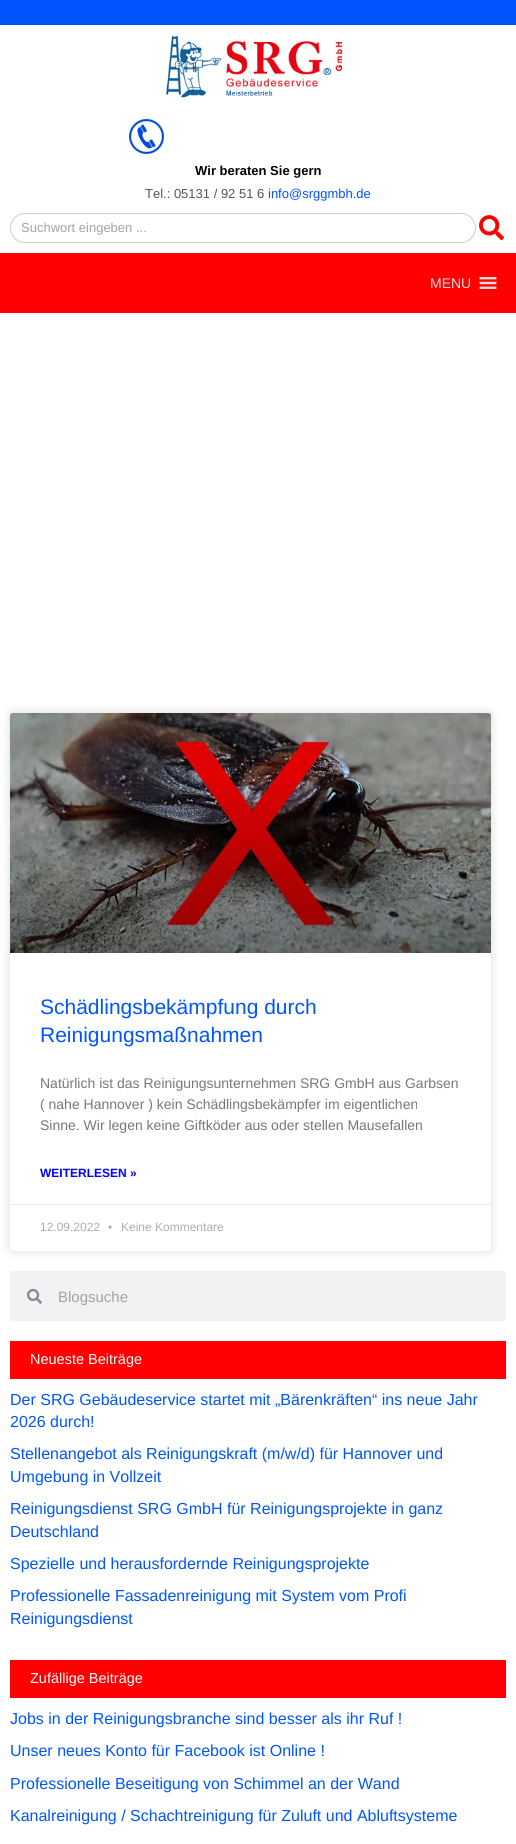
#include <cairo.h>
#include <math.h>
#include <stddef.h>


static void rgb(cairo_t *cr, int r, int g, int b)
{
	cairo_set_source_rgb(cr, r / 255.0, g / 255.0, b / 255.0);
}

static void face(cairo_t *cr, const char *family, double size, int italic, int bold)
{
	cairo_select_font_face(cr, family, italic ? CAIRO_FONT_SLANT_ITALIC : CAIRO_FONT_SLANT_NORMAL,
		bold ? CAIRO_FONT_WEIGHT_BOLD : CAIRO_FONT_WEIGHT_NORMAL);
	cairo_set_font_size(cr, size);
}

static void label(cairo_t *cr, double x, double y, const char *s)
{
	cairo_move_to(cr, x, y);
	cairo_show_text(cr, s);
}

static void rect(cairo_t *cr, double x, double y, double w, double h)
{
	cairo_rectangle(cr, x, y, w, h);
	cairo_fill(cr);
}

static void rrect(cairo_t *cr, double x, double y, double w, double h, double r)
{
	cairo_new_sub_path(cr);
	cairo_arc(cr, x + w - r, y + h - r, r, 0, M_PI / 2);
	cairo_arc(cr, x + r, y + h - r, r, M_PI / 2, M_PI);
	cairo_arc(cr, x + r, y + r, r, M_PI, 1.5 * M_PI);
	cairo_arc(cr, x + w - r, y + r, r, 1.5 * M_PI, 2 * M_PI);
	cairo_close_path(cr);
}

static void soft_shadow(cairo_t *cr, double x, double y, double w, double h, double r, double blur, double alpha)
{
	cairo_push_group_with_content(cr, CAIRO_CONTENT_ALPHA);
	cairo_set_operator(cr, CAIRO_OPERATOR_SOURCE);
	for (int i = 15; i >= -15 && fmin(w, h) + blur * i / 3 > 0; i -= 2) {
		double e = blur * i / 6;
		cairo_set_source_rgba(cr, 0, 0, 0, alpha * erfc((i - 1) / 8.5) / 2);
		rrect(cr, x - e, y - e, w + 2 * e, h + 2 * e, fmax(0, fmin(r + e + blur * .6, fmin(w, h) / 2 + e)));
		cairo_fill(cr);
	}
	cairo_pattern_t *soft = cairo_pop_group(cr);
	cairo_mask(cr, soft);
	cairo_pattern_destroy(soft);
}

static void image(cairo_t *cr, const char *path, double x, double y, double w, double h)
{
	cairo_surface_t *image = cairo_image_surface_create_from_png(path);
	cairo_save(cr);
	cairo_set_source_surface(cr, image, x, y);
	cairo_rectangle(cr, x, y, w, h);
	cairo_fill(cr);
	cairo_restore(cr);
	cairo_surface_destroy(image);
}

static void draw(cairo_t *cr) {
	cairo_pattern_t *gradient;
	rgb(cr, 255, 255, 255);
	cairo_paint(cr);
	rgb(cr, 0, 85, 254);
	rect(cr, 0, 0, 516, 25);
	image(cr, "image0.png", 165, 35, 178, 63);
	image(cr, "image1.png", 129, 119, 35, 35);
	face(cr, "Liberation Sans", 13, 0, 1);
	rgb(cr, 0, 0, 0);
	label(cr, 195, 175, "Wir beraten Sie gern");
	face(cr, "Liberation Sans", 13, 0, 0);
	rgb(cr, 87, 85, 85);
	label(cr, 145, 198, "Tel.: 05131 / 92 51 6");
	rgb(cr, 0, 85, 254);
	label(cr, 268, 198, "info@srggmbh.de");
	rrect(cr, 10.5, 213.5, 465, 29, 14.5);
	rgb(cr, 204, 204, 204);
	cairo_set_line_width(cr, 1);
	cairo_stroke(cr);
	rgb(cr, 163, 163, 163);
	label(cr, 21, 232, "Suchwort eingeben ...");
	image(cr, "image2.png", 479, 215, 25, 26);
	rgb(cr, 254, 0, 0);
	rect(cr, 0, 253, 516, 60);
	face(cr, "Liberation Sans", 14, 0, 0);
	rgb(cr, 221, 221, 221);
	label(cr, 430, 288, "MENU");
	image(cr, "image3.png", 479, 277, 18, 12);
	rgb(cr, 0, 0, 0);
	soft_shadow(cr, 10, 713, 481, 538, 3, 5, 0.15);
	rgb(cr, 255, 255, 255);
	rrect(cr, 10, 713, 481, 538, 3);
	cairo_fill(cr);
	image(cr, "image4.png", 10, 713, 481, 240);
	gradient = cairo_pattern_create_linear(251, 953, 251, 713);
	cairo_pattern_add_color_stop_rgba(gradient, 0, 0, 0, 0, 0.35);
	cairo_pattern_add_color_stop_rgba(gradient, 0.75, 0, 0, 0, 0);
	cairo_set_source(cr, gradient);
	cairo_pattern_destroy(gradient);
	rect(cr, 10, 784, 481, 169);
	face(cr, "Liberation Sans", 21, 0, 0);
	rgb(cr, 0, 85, 254);
	label(cr, 40, 1014, "Schädlingsbekämpfung durch");
	label(cr, 40, 1042, "Reinigungsmaßnahmen");
	face(cr, "Liberation Sans", 14, 0, 0);
	rgb(cr, 119, 119, 119);
	label(cr, 40, 1088, "Natürlich ist das Reinigungsunternehmen SRG GmbH aus Garbsen");
	label(cr, 40, 1109, "( nahe Hannover ) kein Schädlingsbekämpfer im eigentlichen");
	label(cr, 40, 1130, "Sinne. Wir legen keine Giftköder aus oder stellen Mausefallen");
	face(cr, "Liberation Sans", 12, 0, 1);
	rgb(cr, 0, 0, 255);
	label(cr, 40, 1177, "WEITERLESEN »");
	rgb(cr, 234, 234, 234);
	rect(cr, 10, 1204, 481, 1);
	face(cr, "Liberation Sans", 12, 0, 0);
	rgb(cr, 173, 173, 173);
	label(cr, 40, 1231, "12.09.2022");
	label(cr, 108, 1231, "•");
	label(cr, 121, 1231, "Keine Kommentare");
	rgb(cr, 241, 242, 243);
	rrect(cr, 10, 1271, 496, 50, 3);
	cairo_fill(cr);
	image(cr, "image5.png", 27, 1288, 15, 16);
	face(cr, "Liberation Sans", 15, 0, 0);
	rgb(cr, 163, 163, 163);
	label(cr, 58, 1302, "Blogsuche");
	rgb(cr, 254, 0, 0);
	rect(cr, 10, 1341, 496, 38);
	face(cr, "Liberation Sans", 14.5, 0, 0);
	rgb(cr, 255, 255, 255);
	label(cr, 30, 1364, "Neueste Beiträge");
	face(cr, "Liberation Sans", 16, 0, 0);
	rgb(cr, 0, 85, 254);
	label(cr, 10, 1405, "Der SRG Gebäudeservice startet mit „Bärenkräften“ ins neue Jahr");
	label(cr, 10, 1427, "2026 durch!");
	label(cr, 10, 1459, "Stellenangebot als Reinigungskraft (m/w/d) für Hannover und");
	label(cr, 10, 1482, "Umgebung in Vollzeit");
	label(cr, 10, 1514, "Reinigungsdienst SRG GmbH für Reinigungsprojekte in ganz");
	label(cr, 10, 1537, "Deutschland");
	label(cr, 10, 1569, "Spezielle und herausfordernde Reinigungsprojekte");
	label(cr, 10, 1601, "Professionelle Fassadenreinigung mit System vom Profi");
	label(cr, 10, 1624, "Reinigungsdienst");
	rgb(cr, 254, 0, 0);
	rect(cr, 10, 1660, 496, 38);
	face(cr, "Liberation Sans", 14.5, 0, 0);
	rgb(cr, 255, 255, 255);
	label(cr, 30, 1683, "Zufällige Beiträge");
	face(cr, "Liberation Sans", 16, 0, 0);
	rgb(cr, 0, 85, 254);
	label(cr, 10, 1724, "Jobs in der Reinigungsbranche sind besser als ihr Ruf !");
	label(cr, 10, 1756, "Unser neues Konto für Facebook ist Online !");
	label(cr, 10, 1789, "Professionelle Beseitigung von Schimmel an der Wand");
	label(cr, 10, 1821, "Kanalreinigung / Schachtreinigung für Zuluft und Abluftsysteme");
}

int main(void) {
	cairo_surface_t *surface = cairo_image_surface_create(CAIRO_FORMAT_RGB24, 516, 1844);
	cairo_t *cr = cairo_create(surface);
	cairo_font_options_t *options = cairo_font_options_create();
	cairo_font_options_set_hint_metrics(options, CAIRO_HINT_METRICS_OFF);
	cairo_font_options_set_hint_style(options, CAIRO_HINT_STYLE_NONE);
	cairo_set_font_options(cr, options);
	cairo_set_miter_limit(cr, 4);
	draw(cr);
	cairo_surface_write_to_png(surface, "render.png");
	cairo_font_options_destroy(options);
	cairo_destroy(cr);
	cairo_surface_destroy(surface);
	return 0;
}
